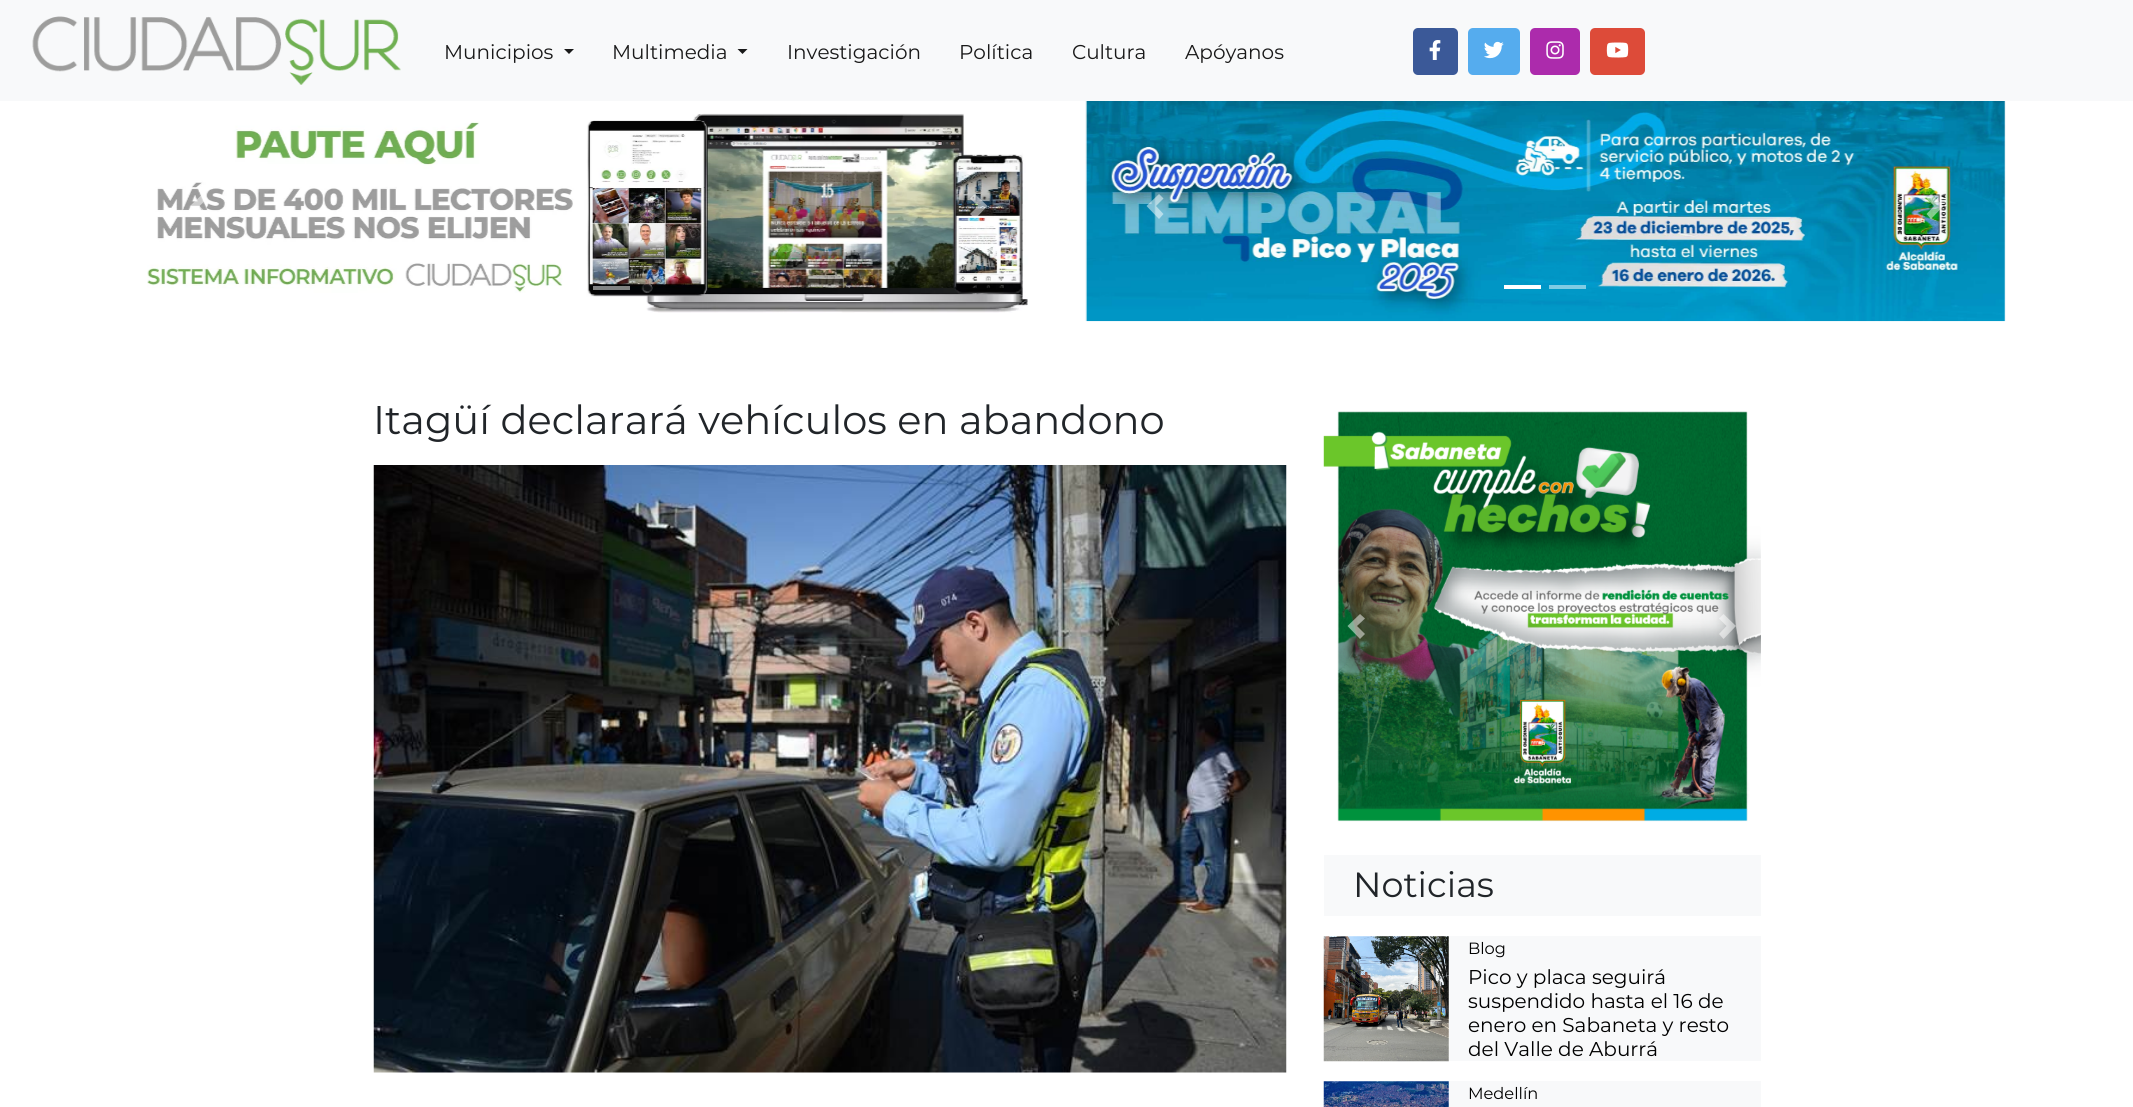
#include <cairo.h>
#include <math.h>
#include <stddef.h>


static void rgb(cairo_t *cr, int r, int g, int b)
{
	cairo_set_source_rgb(cr, r / 255.0, g / 255.0, b / 255.0);
}

static void face(cairo_t *cr, const char *family, double size, int italic, int bold)
{
	cairo_select_font_face(cr, family, italic ? CAIRO_FONT_SLANT_ITALIC : CAIRO_FONT_SLANT_NORMAL,
		bold ? CAIRO_FONT_WEIGHT_BOLD : CAIRO_FONT_WEIGHT_NORMAL);
	cairo_set_font_size(cr, size);
}

static void label(cairo_t *cr, double x, double y, const char *s)
{
	cairo_move_to(cr, x, y);
	cairo_show_text(cr, s);
}

static void rect(cairo_t *cr, double x, double y, double w, double h)
{
	cairo_rectangle(cr, x, y, w, h);
	cairo_fill(cr);
}

static void rrect(cairo_t *cr, double x, double y, double w, double h, double r)
{
	cairo_new_sub_path(cr);
	cairo_arc(cr, x + w - r, y + h - r, r, 0, M_PI / 2);
	cairo_arc(cr, x + r, y + h - r, r, M_PI / 2, M_PI);
	cairo_arc(cr, x + r, y + r, r, M_PI, 1.5 * M_PI);
	cairo_arc(cr, x + w - r, y + r, r, 1.5 * M_PI, 2 * M_PI);
	cairo_close_path(cr);
}

static void image(cairo_t *cr, const char *path, double x, double y, double w, double h)
{
	cairo_surface_t *image = cairo_image_surface_create_from_png(path);
	cairo_save(cr);
	cairo_set_source_surface(cr, image, x, y);
	cairo_rectangle(cr, x, y, w, h);
	cairo_fill(cr);
	cairo_restore(cr);
	cairo_surface_destroy(image);
}

static void draw(cairo_t *cr) {
	rgb(cr, 255, 255, 255);
	cairo_paint(cr);
	rgb(cr, 248, 249, 250);
	rect(cr, 0, 0, 2133, 101);
	image(cr, "image0.png", 32, 16, 369, 69);
	face(cr, "Montserrat Thin", 20, 0, 0);
	rgb(cr, 25, 25, 25);
	label(cr, 444, 59, "Municipios");
	cairo_new_path(cr);
	cairo_move_to(cr, 564, 49);
	cairo_line_to(cr, 574, 49);
	cairo_line_to(cr, 569, 54);
	cairo_close_path(cr);
	cairo_fill(cr);
	label(cr, 612, 59, "Multimedia");
	cairo_new_path(cr);
	cairo_move_to(cr, 737.5, 49);
	cairo_line_to(cr, 747.5, 49);
	cairo_line_to(cr, 742.5, 54);
	cairo_close_path(cr);
	cairo_fill(cr);
	label(cr, 787, 59, "Investigación");
	label(cr, 959, 59, "Política");
	label(cr, 1072, 59, "Cultura");
	label(cr, 1185, 59, "Apóyanos");
	rgb(cr, 59, 89, 152);
	rrect(cr, 1413, 28, 45, 47, 5);
	cairo_fill(cr);
	image(cr, "image1.png", 1429, 40, 12, 20);
	rgb(cr, 85, 172, 238);
	rrect(cr, 1468, 28, 52, 47, 5);
	cairo_fill(cr);
	image(cr, "image2.png", 1484, 41, 20, 18);
	rgb(cr, 172, 43, 172);
	rrect(cr, 1530, 28, 50, 47, 5);
	cairo_fill(cr);
	image(cr, "image3.png", 1546, 41, 18, 18);
	rgb(cr, 221, 75, 57);
	rrect(cr, 1590, 28, 55, 47, 5);
	cairo_fill(cr);
	image(cr, "image4.png", 1606, 42, 23, 16);
	image(cr, "image5.png", 147, 101, 881, 212);
	cairo_set_source_rgba(cr, 1, 1, 1, 0.5);
	cairo_new_path(cr);
	cairo_move_to(cr, 202.5, 194);
	cairo_line_to(cr, 190, 206);
	cairo_line_to(cr, 202.5, 219);
	cairo_line_to(cr, 207.5, 214);
	cairo_line_to(cr, 199.5, 206);
	cairo_line_to(cr, 207.5, 198.5);
	cairo_close_path(cr);
	cairo_fill(cr);
	cairo_new_path(cr);
	cairo_move_to(cr, 975, 194);
	cairo_line_to(cr, 970, 198.5);
	cairo_line_to(cr, 978, 206);
	cairo_line_to(cr, 970, 214);
	cairo_line_to(cr, 975, 219);
	cairo_line_to(cr, 987.5, 206);
	cairo_close_path(cr);
	cairo_fill(cr);
	rgb(cr, 255, 255, 255);
	rect(cr, 548, 286, 15, 2);
	cairo_set_source_rgba(cr, 1, 1, 1, 0.5);
	rect(cr, 593, 286, 37, 4);
	image(cr, "image6.png", 1085, 101, 921, 221);
	cairo_new_path(cr);
	cairo_move_to(cr, 1159, 194);
	cairo_line_to(cr, 1146.5, 206);
	cairo_line_to(cr, 1159, 219);
	cairo_line_to(cr, 1163.5, 214);
	cairo_line_to(cr, 1156, 206);
	cairo_line_to(cr, 1163.5, 198.5);
	cairo_close_path(cr);
	cairo_fill(cr);
	cairo_new_path(cr);
	cairo_move_to(cr, 1931, 194);
	cairo_line_to(cr, 1926.5, 198.5);
	cairo_line_to(cr, 1934, 206);
	cairo_line_to(cr, 1926.5, 214);
	cairo_line_to(cr, 1931, 219);
	cairo_line_to(cr, 1943.5, 206);
	cairo_close_path(cr);
	cairo_fill(cr);
	rgb(cr, 255, 255, 255);
	rect(cr, 1504, 285, 37, 4);
	cairo_set_source_rgba(cr, 1, 1, 1, 0.5);
	rect(cr, 1549, 285, 37, 4);
	face(cr, "Montserrat Thin", 40, 0, 0);
	rgb(cr, 33, 37, 41);
	label(cr, 373, 434, "Itagüí declarará vehículos en abandono");
	image(cr, "image7.png", 373, 465, 914, 608);
	image(cr, "image8.png", 1323, 411, 438, 411);
	cairo_set_source_rgba(cr, 1, 1, 1, 0.5);
	cairo_new_path(cr);
	cairo_move_to(cr, 1360, 614);
	cairo_line_to(cr, 1347.5, 626);
	cairo_line_to(cr, 1360, 639);
	cairo_line_to(cr, 1365, 634);
	cairo_line_to(cr, 1357, 626);
	cairo_line_to(cr, 1365, 618.5);
	cairo_close_path(cr);
	cairo_fill(cr);
	cairo_new_path(cr);
	cairo_move_to(cr, 1723.5, 614);
	cairo_line_to(cr, 1719, 618.5);
	cairo_line_to(cr, 1726.5, 626);
	cairo_line_to(cr, 1719, 634);
	cairo_line_to(cr, 1723.5, 639);
	cairo_line_to(cr, 1736, 626);
	cairo_close_path(cr);
	cairo_fill(cr);
	rgb(cr, 248, 249, 250);
	rect(cr, 1324, 855, 437, 61);
	face(cr, "Montserrat Thin", 35, 0, 0);
	rgb(cr, 33, 37, 41);
	label(cr, 1353, 897, "Noticias");
	image(cr, "image9.png", 1323, 936, 126, 126);
	rgb(cr, 248, 249, 250);
	rect(cr, 1449, 936, 312, 125);
	face(cr, "Montserrat Thin", 16.25, 0, 0);
	rgb(cr, 0, 0, 0);
	label(cr, 1468, 954, "Blog");
	face(cr, "Montserrat Thin", 20, 0, 0);
	label(cr, 1468, 984, "Pico y placa seguirá");
	label(cr, 1468, 1008, "suspendido hasta el 16 de");
	label(cr, 1468, 1032, "enero en Sabaneta y resto");
	label(cr, 1468, 1056, "del Valle de Aburrá");
	image(cr, "image10.png", 1323, 1081, 126, 26);
	rgb(cr, 248, 249, 250);
	rect(cr, 1449, 1081, 312, 26);
	face(cr, "Montserrat Thin", 16.25, 0, 0);
	rgb(cr, 0, 0, 0);
	label(cr, 1468, 1099, "Medellín");
}

int main(void) {
	cairo_surface_t *surface = cairo_image_surface_create(CAIRO_FORMAT_RGB24, 2133, 1107);
	cairo_t *cr = cairo_create(surface);
	cairo_font_options_t *options = cairo_font_options_create();
	cairo_font_options_set_hint_metrics(options, CAIRO_HINT_METRICS_OFF);
	cairo_font_options_set_hint_style(options, CAIRO_HINT_STYLE_NONE);
	cairo_set_font_options(cr, options);
	cairo_set_miter_limit(cr, 4);
	draw(cr);
	cairo_surface_write_to_png(surface, "render.png");
	cairo_font_options_destroy(options);
	cairo_destroy(cr);
	cairo_surface_destroy(surface);
	return 0;
}
